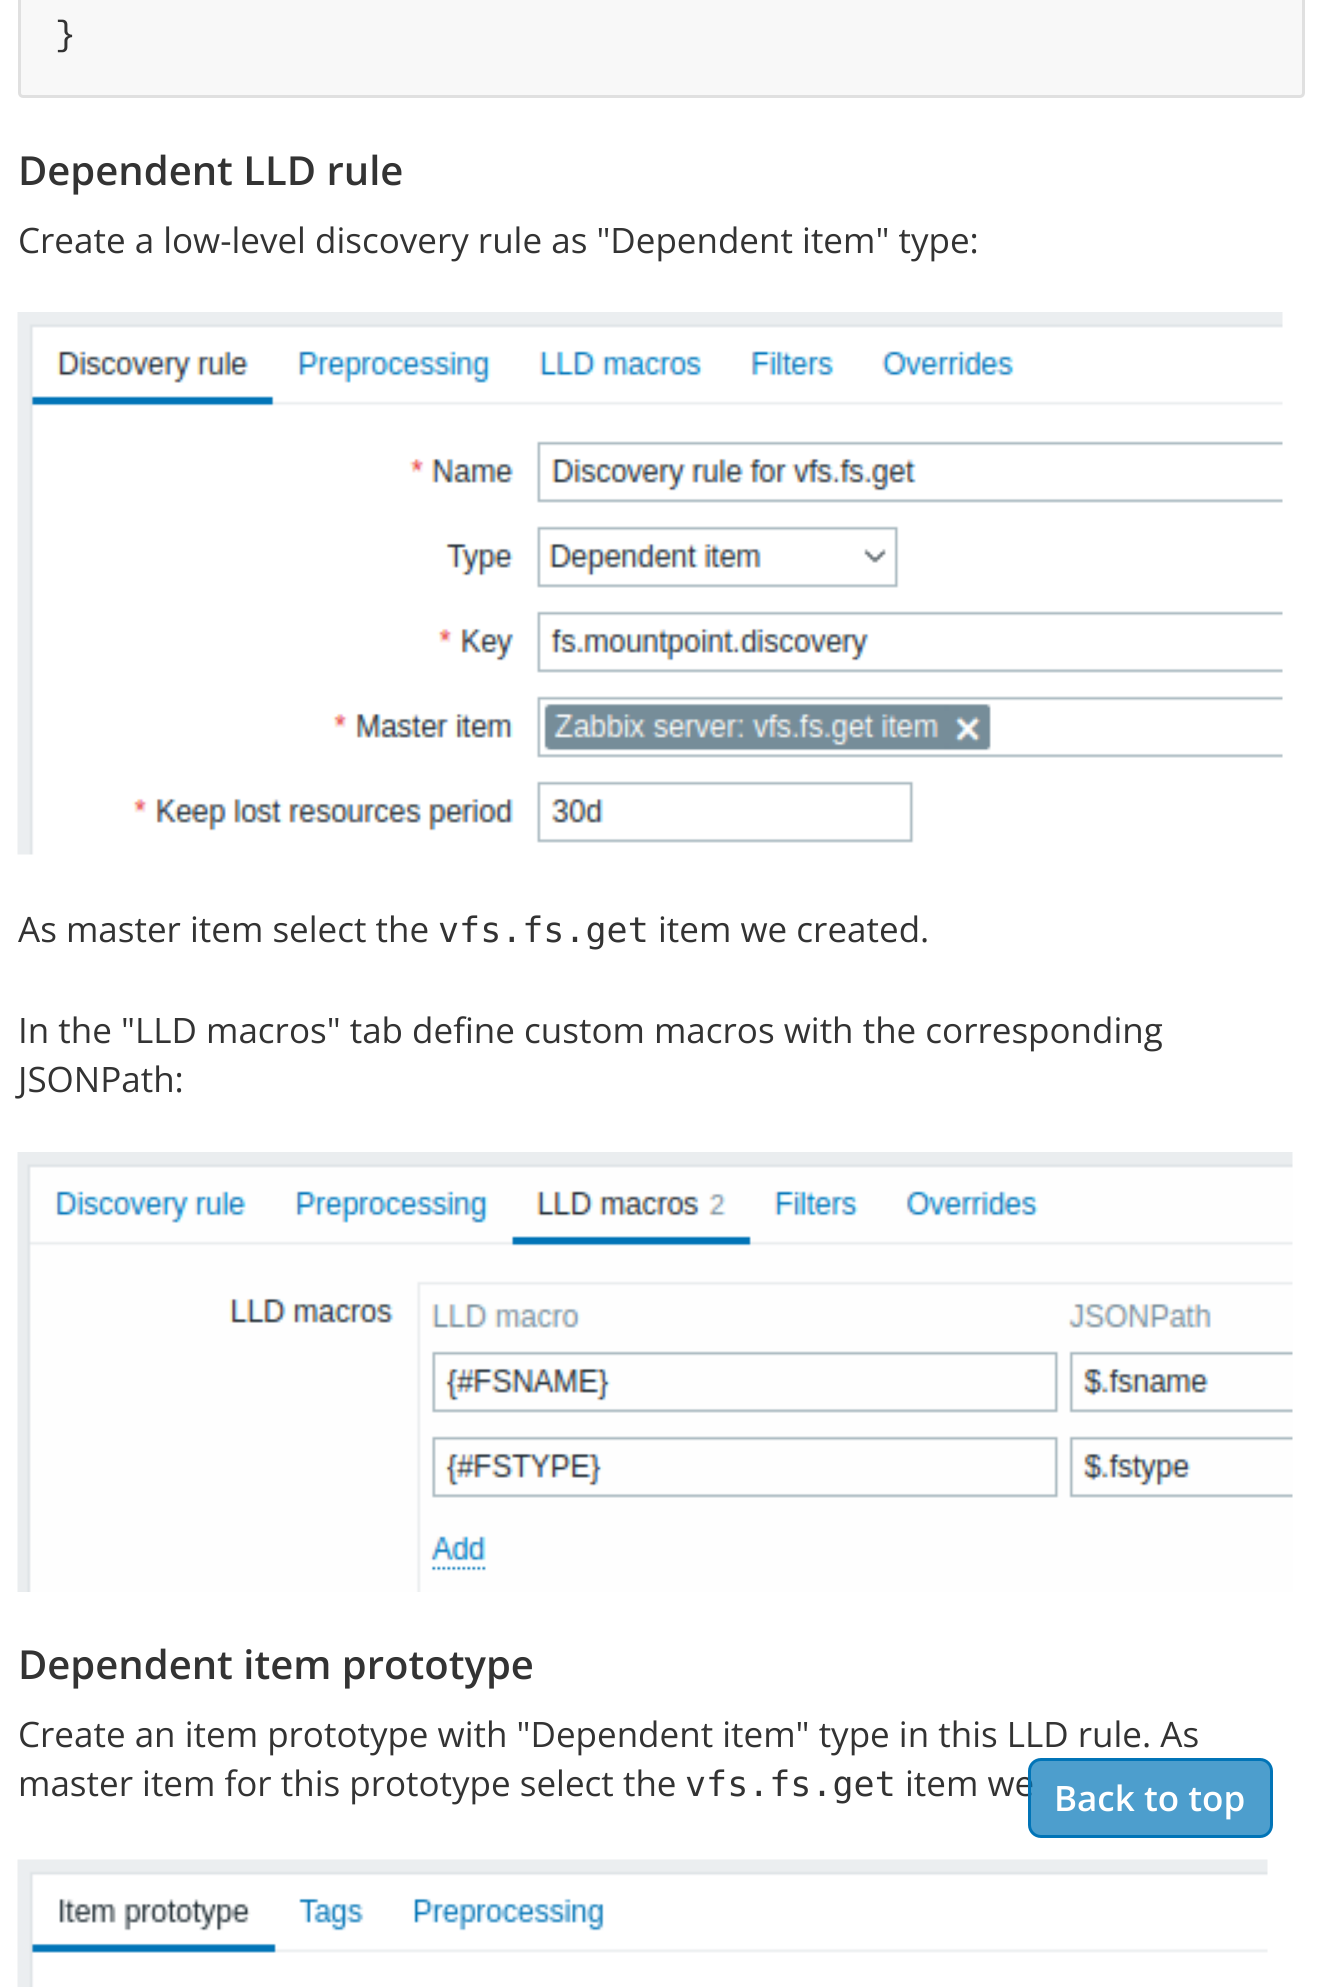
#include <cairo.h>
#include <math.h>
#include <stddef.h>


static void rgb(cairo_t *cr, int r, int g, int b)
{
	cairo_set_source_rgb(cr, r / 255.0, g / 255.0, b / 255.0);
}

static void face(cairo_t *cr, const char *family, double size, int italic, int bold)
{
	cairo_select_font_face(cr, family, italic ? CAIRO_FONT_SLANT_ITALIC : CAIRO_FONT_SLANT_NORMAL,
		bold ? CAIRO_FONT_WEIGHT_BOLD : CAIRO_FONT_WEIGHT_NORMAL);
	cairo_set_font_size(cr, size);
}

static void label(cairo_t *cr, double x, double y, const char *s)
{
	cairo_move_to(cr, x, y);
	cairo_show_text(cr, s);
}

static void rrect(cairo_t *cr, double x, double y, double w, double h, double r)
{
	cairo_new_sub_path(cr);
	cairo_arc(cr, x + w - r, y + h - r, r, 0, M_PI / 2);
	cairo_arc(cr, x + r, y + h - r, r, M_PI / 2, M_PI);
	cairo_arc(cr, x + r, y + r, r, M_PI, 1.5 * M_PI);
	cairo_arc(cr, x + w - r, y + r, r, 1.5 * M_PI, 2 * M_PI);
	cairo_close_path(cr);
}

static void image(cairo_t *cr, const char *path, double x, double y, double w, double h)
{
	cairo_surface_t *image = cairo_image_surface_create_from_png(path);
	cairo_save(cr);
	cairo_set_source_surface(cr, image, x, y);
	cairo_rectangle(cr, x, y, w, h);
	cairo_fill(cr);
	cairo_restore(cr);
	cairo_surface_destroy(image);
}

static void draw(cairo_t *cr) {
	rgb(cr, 255, 255, 255);
	cairo_paint(cr);
	rgb(cr, 248, 248, 248);
	rrect(cr, 19.5, -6.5, 1284, 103, 3.5);
	cairo_fill_preserve(cr);
	rgb(cr, 224, 224, 224);
	cairo_set_line_width(cr, 3);
	cairo_stroke(cr);
	face(cr, "Liberation Mono", 35, 0, 0);
	rgb(cr, 51, 51, 51);
	label(cr, 55, 45, "}");
	face(cr, "Open Sans SemiBold", 40, 0, 0);
	label(cr, 18, 185, "Dependent LLD rule");
	face(cr, "Open Sans", 35, 0, 0);
	label(cr, 18, 253, "Create a low-level discovery rule as \"Dependent item\" type:");
	image(cr, "image0.png", 17, 312, 1266, 543);
	label(cr, 18, 942, "As master item select the");
	face(cr, "DejaVu Sans Mono", 35, 0, 0);
	label(cr, 438, 942, "vfs.fs.get");
	face(cr, "Open Sans", 35, 0, 0);
	label(cr, 658, 942, "item we created.");
	label(cr, 18, 1043, "In the \"LLD macros\" tab define custom macros with the corresponding");
	label(cr, 18, 1092, "JSONPath:");
	image(cr, "image1.png", 17, 1152, 1276, 440);
	face(cr, "Open Sans SemiBold", 40, 0, 0);
	label(cr, 18, 1679, "Dependent item prototype");
	face(cr, "Open Sans", 35, 0, 0);
	label(cr, 18, 1747, "Create an item prototype with \"Dependent item\" type in this LLD rule. As");
	label(cr, 18, 1796, "master item for this prototype select the");
	face(cr, "DejaVu Sans Mono", 35, 0, 0);
	label(cr, 685, 1796, "vfs.fs.get");
	face(cr, "Open Sans", 35, 0, 0);
	label(cr, 905, 1796, "item we");
	image(cr, "image2.png", 17, 1859, 1251, 128);
	cairo_set_source_rgba(cr, 0.008, 0.459, 0.722, 0.7);
	rrect(cr, 1029.5, 1759.5, 242, 77, 11.5);
	cairo_fill_preserve(cr);
	rgb(cr, 1, 116, 183);
	cairo_stroke(cr);
	face(cr, "Open Sans SemiBold", 35, 0, 0);
	rgb(cr, 255, 255, 255);
	label(cr, 1054, 1811, "Back to top");
}

int main(void) {
	cairo_surface_t *surface = cairo_image_surface_create(CAIRO_FORMAT_RGB24, 1321, 1987);
	cairo_t *cr = cairo_create(surface);
	cairo_font_options_t *options = cairo_font_options_create();
	cairo_font_options_set_hint_metrics(options, CAIRO_HINT_METRICS_OFF);
	cairo_font_options_set_hint_style(options, CAIRO_HINT_STYLE_NONE);
	cairo_set_font_options(cr, options);
	cairo_set_miter_limit(cr, 4);
	draw(cr);
	cairo_surface_write_to_png(surface, "render.png");
	cairo_font_options_destroy(options);
	cairo_destroy(cr);
	cairo_surface_destroy(surface);
	return 0;
}
